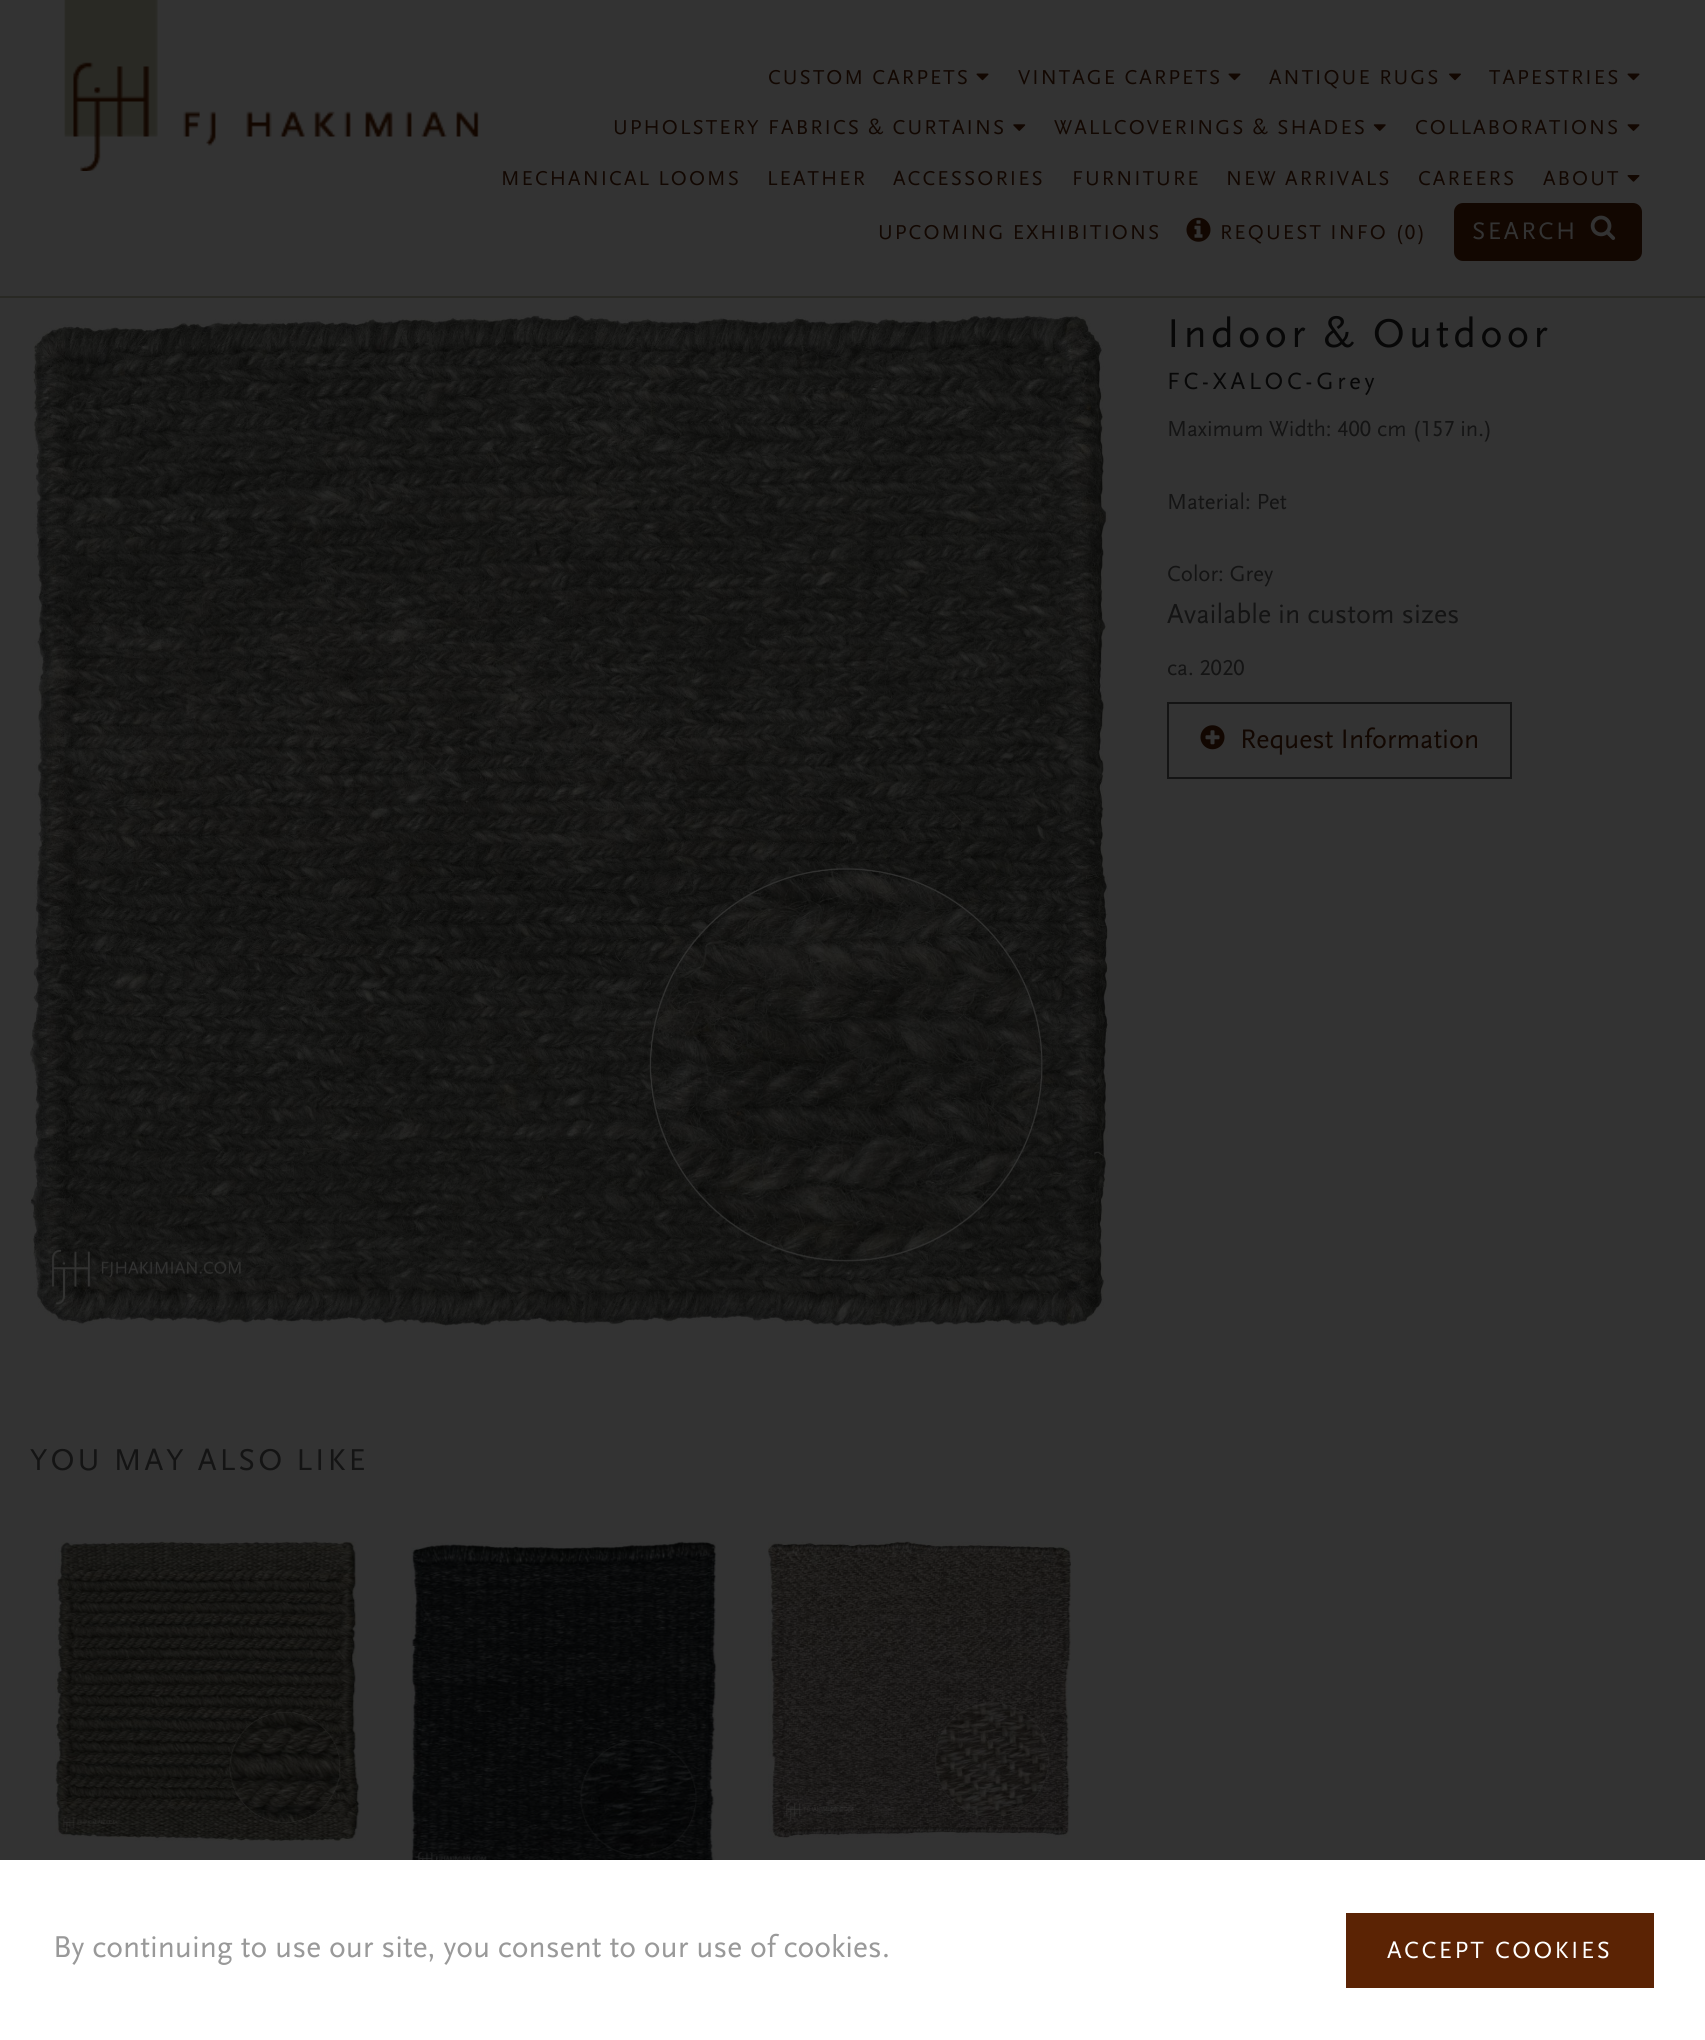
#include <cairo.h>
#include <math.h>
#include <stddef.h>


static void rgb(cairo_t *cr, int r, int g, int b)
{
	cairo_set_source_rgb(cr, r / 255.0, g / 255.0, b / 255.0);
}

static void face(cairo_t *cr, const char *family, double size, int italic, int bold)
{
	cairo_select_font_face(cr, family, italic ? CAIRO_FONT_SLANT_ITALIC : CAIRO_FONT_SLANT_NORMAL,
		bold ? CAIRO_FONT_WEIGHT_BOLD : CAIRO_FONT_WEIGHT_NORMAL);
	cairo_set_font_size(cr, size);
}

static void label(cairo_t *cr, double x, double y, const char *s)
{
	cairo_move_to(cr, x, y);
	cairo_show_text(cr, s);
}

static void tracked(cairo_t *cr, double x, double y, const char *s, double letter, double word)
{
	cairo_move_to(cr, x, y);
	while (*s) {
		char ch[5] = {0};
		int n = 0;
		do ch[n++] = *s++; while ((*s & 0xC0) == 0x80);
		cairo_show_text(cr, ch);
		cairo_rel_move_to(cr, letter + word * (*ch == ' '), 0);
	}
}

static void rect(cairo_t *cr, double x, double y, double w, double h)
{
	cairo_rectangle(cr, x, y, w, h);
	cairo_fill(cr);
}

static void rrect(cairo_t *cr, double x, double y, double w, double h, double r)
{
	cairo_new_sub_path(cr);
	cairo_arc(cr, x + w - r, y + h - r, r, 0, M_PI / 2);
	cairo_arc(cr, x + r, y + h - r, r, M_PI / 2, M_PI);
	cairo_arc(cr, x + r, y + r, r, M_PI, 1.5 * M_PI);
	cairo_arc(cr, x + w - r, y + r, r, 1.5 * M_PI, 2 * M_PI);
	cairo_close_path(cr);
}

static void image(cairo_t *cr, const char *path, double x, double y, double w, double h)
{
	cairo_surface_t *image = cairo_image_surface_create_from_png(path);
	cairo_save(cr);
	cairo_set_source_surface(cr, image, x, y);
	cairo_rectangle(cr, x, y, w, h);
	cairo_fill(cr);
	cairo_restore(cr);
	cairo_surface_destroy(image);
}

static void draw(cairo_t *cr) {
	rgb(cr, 51, 51, 51);
	cairo_paint(cr);
	rgb(cr, 41, 41, 36);
	rect(cr, 0, 296, 1705, 2);
	image(cr, "image0.png", 64, 0, 94, 171);
	image(cr, "image1.png", 183, 111, 296, 35);
	face(cr, "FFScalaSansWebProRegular", 21, 0, 0);
	rgb(cr, 18, 7, 1);
	tracked(cr, 768, 84, "CUSTOM CARPETS", 2.1, 0);
	image(cr, "image2.png", 976, 73, 13, 8);
	tracked(cr, 1018, 84, "VINTAGE CARPETS", 2.1, 0);
	image(cr, "image2.png", 1228, 73, 13, 8);
	tracked(cr, 1269, 84, "ANTIQUE RUGS", 2.1, 0);
	image(cr, "image3.png", 1449, 73, 12, 8);
	tracked(cr, 1489, 84, "TAPESTRIES", 2.1, 0);
	image(cr, "image2.png", 1627, 73, 13, 8);
	tracked(cr, 613, 134, "UPHOLSTERY FABRICS & CURTAINS", 2.1, 0);
	image(cr, "image4.png", 1013, 124, 13, 7);
	tracked(cr, 1054, 134, "WALLCOVERINGS & SHADES", 2.1, 0);
	image(cr, "image5.png", 1373, 124, 13, 7);
	tracked(cr, 1415, 134, "COLLABORATIONS", 2.1, 0);
	image(cr, "image6.png", 1627, 124, 13, 7);
	tracked(cr, 501, 185, "MECHANICAL LOOMS", 2.1, 0);
	tracked(cr, 767, 185, "LEATHER", 2.1, 0);
	tracked(cr, 893, 185, "ACCESSORIES", 2.1, 0);
	tracked(cr, 1072, 185, "FURNITURE", 2.1, 0);
	tracked(cr, 1226, 185, "NEW ARRIVALS", 2.1, 0);
	tracked(cr, 1418, 185, "CAREERS", 2.1, 0);
	tracked(cr, 1543, 185, "ABOUT", 2.1, 0);
	image(cr, "image7.png", 1627, 175, 13, 7);
	tracked(cr, 878, 239, "UPCOMING EXHIBITIONS", 2.1, 0);
	image(cr, "image8.png", 1186, 217, 25, 25);
	tracked(cr, 1220, 239, "REQUEST INFO (0)", 2.1, 0);
	rrect(cr, 1454, 203, 188, 58, 9);
	cairo_fill(cr);
	face(cr, "FFScalaSansWebProRegular", 25, 0, 0);
	rgb(cr, 51, 51, 51);
	tracked(cr, 1472, 239, "SEARCH", 2.5, 0);
	image(cr, "image9.png", 1590, 215, 26, 25);
	face(cr, "FFScalaSansWebProRegular", 42, 0, 0);
	rgb(cr, 7, 7, 7);
	tracked(cr, 1167, 347, "Indoor & Outdoor", 4.25, 0);
	face(cr, "FFScalaSansWebProRegular", 24.5, 0, 0);
	tracked(cr, 1167, 389, "FC-XALOC-Grey", 3.75, 0);
	face(cr, "FFScalaSansWebProRegular", 22.75, 0, 0);
	rgb(cr, 20, 20, 20);
	label(cr, 1167, 436, "Maximum Width: 400 cm (157 in.)");
	label(cr, 1167, 509, "Material: Pet");
	label(cr, 1167, 581, "Color: Grey");
	face(cr, "FFScalaSansWebProRegular", 28, 0, 0);
	label(cr, 1167, 623, "Available in custom sizes");
	face(cr, "FFScalaSansWebProRegular", 22.75, 0, 0);
	label(cr, 1167, 675, "ca. 2020");
	cairo_rectangle(cr, 1168, 703, 343, 75);
	cairo_stroke(cr);
	image(cr, "image10.png", 1200, 725, 25, 25);
	face(cr, "FFScalaSansWebProRegular", 28, 0, 0);
	rgb(cr, 18, 7, 1);
	label(cr, 1240, 748, "Request Information");
	image(cr, "image11.png", 30, 315, 1078, 1012);
	face(cr, "FFScalaSansWebProRegular", 31.5, 0, 0);
	rgb(cr, 20, 20, 20);
	tracked(cr, 30, 1470, "YOU MAY ALSO LIKE", 3.1, 0);
	image(cr, "image12.png", 55, 1541, 305, 300);
	image(cr, "image13.png", 411, 1541, 306, 319);
	image(cr, "image14.png", 768, 1541, 303, 297);
	rgb(cr, 255, 255, 255);
	rect(cr, 0, 1860, 1705, 180);
	rgb(cr, 153, 153, 153);
	label(cr, 53, 1957, "By continuing to use our site, you consent to our use of cookies.");
	rgb(cr, 91, 35, 4);
	rect(cr, 1346, 1913, 308, 75);
	face(cr, "FFScalaSansWebProRegular", 24.5, 0, 0);
	rgb(cr, 255, 255, 255);
	tracked(cr, 1387, 1958, "ACCEPT COOKIES", 2.5, 0);
}

int main(void) {
	cairo_surface_t *surface = cairo_image_surface_create(CAIRO_FORMAT_RGB24, 1705, 2040);
	cairo_t *cr = cairo_create(surface);
	cairo_font_options_t *options = cairo_font_options_create();
	cairo_font_options_set_hint_metrics(options, CAIRO_HINT_METRICS_OFF);
	cairo_font_options_set_hint_style(options, CAIRO_HINT_STYLE_NONE);
	cairo_set_font_options(cr, options);
	cairo_set_miter_limit(cr, 4);
	draw(cr);
	cairo_surface_write_to_png(surface, "render.png");
	cairo_font_options_destroy(options);
	cairo_destroy(cr);
	cairo_surface_destroy(surface);
	return 0;
}
